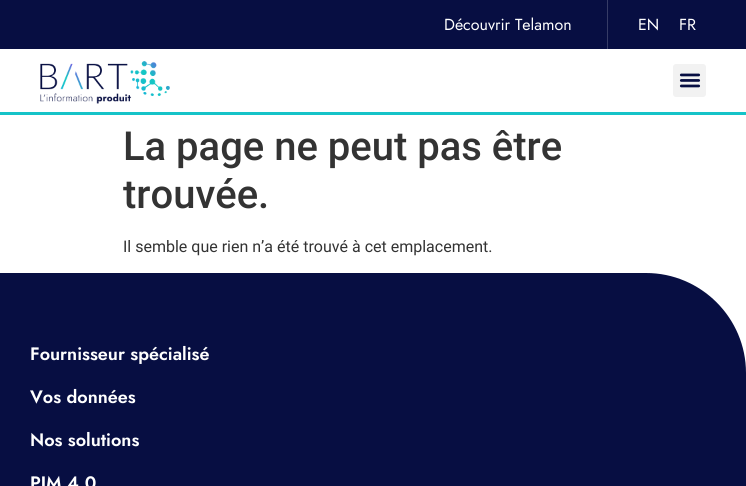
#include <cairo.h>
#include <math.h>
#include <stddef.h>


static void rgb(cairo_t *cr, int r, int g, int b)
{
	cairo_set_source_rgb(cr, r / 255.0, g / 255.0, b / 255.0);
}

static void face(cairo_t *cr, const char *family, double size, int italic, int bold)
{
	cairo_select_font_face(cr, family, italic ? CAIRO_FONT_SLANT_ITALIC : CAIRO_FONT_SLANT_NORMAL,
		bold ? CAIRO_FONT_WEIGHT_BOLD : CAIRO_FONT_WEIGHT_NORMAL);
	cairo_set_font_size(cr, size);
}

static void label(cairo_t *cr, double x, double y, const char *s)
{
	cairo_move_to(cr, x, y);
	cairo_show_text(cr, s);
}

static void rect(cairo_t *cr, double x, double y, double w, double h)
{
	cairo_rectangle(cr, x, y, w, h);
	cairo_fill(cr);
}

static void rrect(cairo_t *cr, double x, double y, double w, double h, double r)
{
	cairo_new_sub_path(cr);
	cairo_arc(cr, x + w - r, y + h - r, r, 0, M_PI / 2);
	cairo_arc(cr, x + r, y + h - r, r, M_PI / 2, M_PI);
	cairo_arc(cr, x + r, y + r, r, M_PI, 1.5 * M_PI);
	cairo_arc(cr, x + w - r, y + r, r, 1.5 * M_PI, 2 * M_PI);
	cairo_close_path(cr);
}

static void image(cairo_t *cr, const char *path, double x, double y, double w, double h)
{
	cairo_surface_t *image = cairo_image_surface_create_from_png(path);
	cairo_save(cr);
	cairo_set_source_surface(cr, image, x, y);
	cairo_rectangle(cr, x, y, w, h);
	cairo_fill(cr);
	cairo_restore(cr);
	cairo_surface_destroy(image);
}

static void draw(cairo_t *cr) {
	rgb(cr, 255, 255, 255);
	cairo_paint(cr);
	rgb(cr, 7, 14, 66);
	rect(cr, 0, 0, 746, 49);
	rgb(cr, 54, 60, 102);
	rect(cr, 607, 0, 1, 49);
	face(cr, "Jost", 16, 0, 0);
	rgb(cr, 255, 255, 255);
	label(cr, 444, 30, "Découvrir Telamon");
	label(cr, 638, 30, "EN");
	label(cr, 679, 30, "FR");
	rgb(cr, 21, 195, 200);
	rect(cr, 0, 112, 746, 3);
	image(cr, "image0.png", 40, 61, 130, 43);
	rgb(cr, 242, 242, 242);
	rrect(cr, 673, 64, 33, 33, 3);
	cairo_fill(cr);
	image(cr, "image1.png", 679, 73, 22, 15);
	face(cr, "Roboto Medium", 40, 0, 0);
	rgb(cr, 51, 51, 51);
	label(cr, 123, 160, "La page ne peut pas être");
	label(cr, 123, 208, "trouvée.");
	face(cr, "Roboto", 16, 0, 0);
	label(cr, 123, 252, "Il semble que rien n’a été trouvé à cet emplacement.");
	rgb(cr, 7, 14, 66);
	cairo_new_path(cr);
	cairo_move_to(cr, 0, 273);
	cairo_line_to(cr, 646, 273);
	cairo_curve_to(cr, 701, 273, 746, 318, 746, 373);
	cairo_line_to(cr, 746, 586);
	cairo_line_to(cr, 0, 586);
	cairo_close_path(cr);
	cairo_fill(cr);
	face(cr, "Jost SemiBold", 18, 0, 0);
	rgb(cr, 255, 255, 255);
	label(cr, 30, 360, "Fournisseur spécialisé");
	label(cr, 30, 403, "Vos données");
	label(cr, 30, 446, "Nos solutions");
	label(cr, 30, 489, "PIM 4.0");
}

int main(void) {
	cairo_surface_t *surface = cairo_image_surface_create(CAIRO_FORMAT_RGB24, 746, 486);
	cairo_t *cr = cairo_create(surface);
	cairo_font_options_t *options = cairo_font_options_create();
	cairo_font_options_set_hint_metrics(options, CAIRO_HINT_METRICS_OFF);
	cairo_font_options_set_hint_style(options, CAIRO_HINT_STYLE_NONE);
	cairo_set_font_options(cr, options);
	cairo_set_miter_limit(cr, 4);
	draw(cr);
	cairo_surface_write_to_png(surface, "render.png");
	cairo_font_options_destroy(options);
	cairo_destroy(cr);
	cairo_surface_destroy(surface);
	return 0;
}
